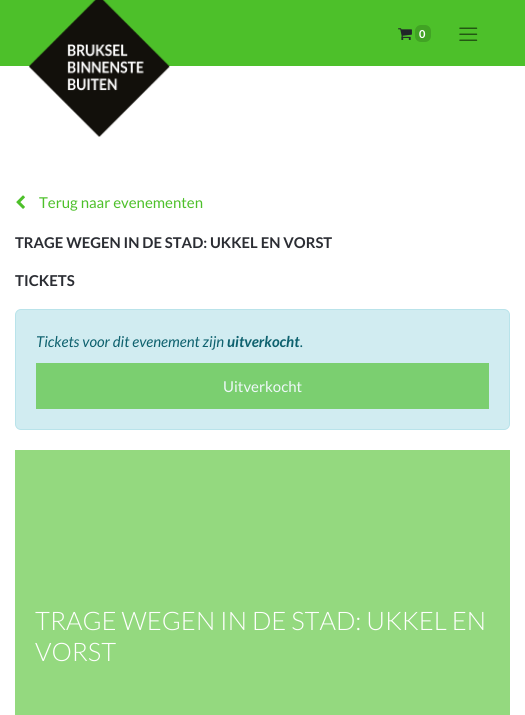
#include <cairo.h>
#include <math.h>
#include <stddef.h>


static void rgb(cairo_t *cr, int r, int g, int b)
{
	cairo_set_source_rgb(cr, r / 255.0, g / 255.0, b / 255.0);
}

static void face(cairo_t *cr, const char *family, double size, int italic, int bold)
{
	cairo_select_font_face(cr, family, italic ? CAIRO_FONT_SLANT_ITALIC : CAIRO_FONT_SLANT_NORMAL,
		bold ? CAIRO_FONT_WEIGHT_BOLD : CAIRO_FONT_WEIGHT_NORMAL);
	cairo_set_font_size(cr, size);
}

static void label(cairo_t *cr, double x, double y, const char *s)
{
	cairo_move_to(cr, x, y);
	cairo_show_text(cr, s);
}

static void rect(cairo_t *cr, double x, double y, double w, double h)
{
	cairo_rectangle(cr, x, y, w, h);
	cairo_fill(cr);
}

static void rrect(cairo_t *cr, double x, double y, double w, double h, double r)
{
	cairo_new_sub_path(cr);
	cairo_arc(cr, x + w - r, y + h - r, r, 0, M_PI / 2);
	cairo_arc(cr, x + r, y + h - r, r, M_PI / 2, M_PI);
	cairo_arc(cr, x + r, y + r, r, M_PI, 1.5 * M_PI);
	cairo_arc(cr, x + w - r, y + r, r, 1.5 * M_PI, 2 * M_PI);
	cairo_close_path(cr);
}

static void image(cairo_t *cr, const char *path, double x, double y, double w, double h)
{
	cairo_surface_t *image = cairo_image_surface_create_from_png(path);
	cairo_save(cr);
	cairo_set_source_surface(cr, image, x, y);
	cairo_rectangle(cr, x, y, w, h);
	cairo_fill(cr);
	cairo_restore(cr);
	cairo_surface_destroy(image);
}

static void draw(cairo_t *cr) {
	rgb(cr, 255, 255, 255);
	cairo_paint(cr);
	rgb(cr, 77, 192, 42);
	rect(cr, 0, 0, 525, 66);
	image(cr, "image0.png", 28, 0, 142, 137);
	image(cr, "image1.png", 398, 28, 14, 12);
	rgb(cr, 65, 163, 36);
	rrect(cr, 415, 25, 16, 17, 6);
	cairo_fill(cr);
	face(cr, "Lato", 11, 0, 1);
	rgb(cr, 255, 255, 255);
	label(cr, 419, 38, "0");
	image(cr, "image2.png", 459, 27, 19, 14);
	image(cr, "image3.png", 16, 195, 9, 14);
	face(cr, "Lato", 15, 0, 0);
	rgb(cr, 77, 192, 42);
	label(cr, 39, 208, "Terug naar evenementen");
	face(cr, "Lato", 14.85, 0, 1);
	rgb(cr, 43, 45, 51);
	label(cr, 15, 248, "TRAGE WEGEN IN DE STAD: UKKEL EN VORST");
	face(cr, "Lato", 15, 0, 1);
	label(cr, 15, 286, "TICKETS");
	rgb(cr, 209, 236, 241);
	rrect(cr, 15.5, 309.5, 494, 120, 5.5);
	cairo_fill_preserve(cr);
	rgb(cr, 185, 227, 234);
	cairo_set_line_width(cr, 1);
	cairo_stroke(cr);
	face(cr, "Lato", 15, 1, 0);
	rgb(cr, 14, 97, 110);
	label(cr, 36, 347, "Tickets voor dit evenement zijn");
	face(cr, "Lato", 15, 1, 1);
	label(cr, 227, 347, "uitverkocht");
	face(cr, "Lato", 15, 1, 0);
	label(cr, 300, 347, ".");
	rgb(cr, 123, 207, 112);
	rect(cr, 36, 363, 453, 46);
	face(cr, "Lato", 15, 0, 0);
	rgb(cr, 239, 248, 250);
	label(cr, 223, 392, "Uitverkocht");
	rgb(cr, 148, 217, 127);
	rect(cr, 15, 450, 495, 265);
	face(cr, "Lato Light", 25.5, 0, 0);
	rgb(cr, 255, 255, 255);
	label(cr, 35, 630, "TRAGE WEGEN IN DE STAD: UKKEL EN");
	label(cr, 35, 661, "VORST");
}

int main(void) {
	cairo_surface_t *surface = cairo_image_surface_create(CAIRO_FORMAT_RGB24, 525, 715);
	cairo_t *cr = cairo_create(surface);
	cairo_font_options_t *options = cairo_font_options_create();
	cairo_font_options_set_hint_metrics(options, CAIRO_HINT_METRICS_OFF);
	cairo_font_options_set_hint_style(options, CAIRO_HINT_STYLE_NONE);
	cairo_set_font_options(cr, options);
	cairo_set_miter_limit(cr, 4);
	draw(cr);
	cairo_surface_write_to_png(surface, "render.png");
	cairo_font_options_destroy(options);
	cairo_destroy(cr);
	cairo_surface_destroy(surface);
	return 0;
}
